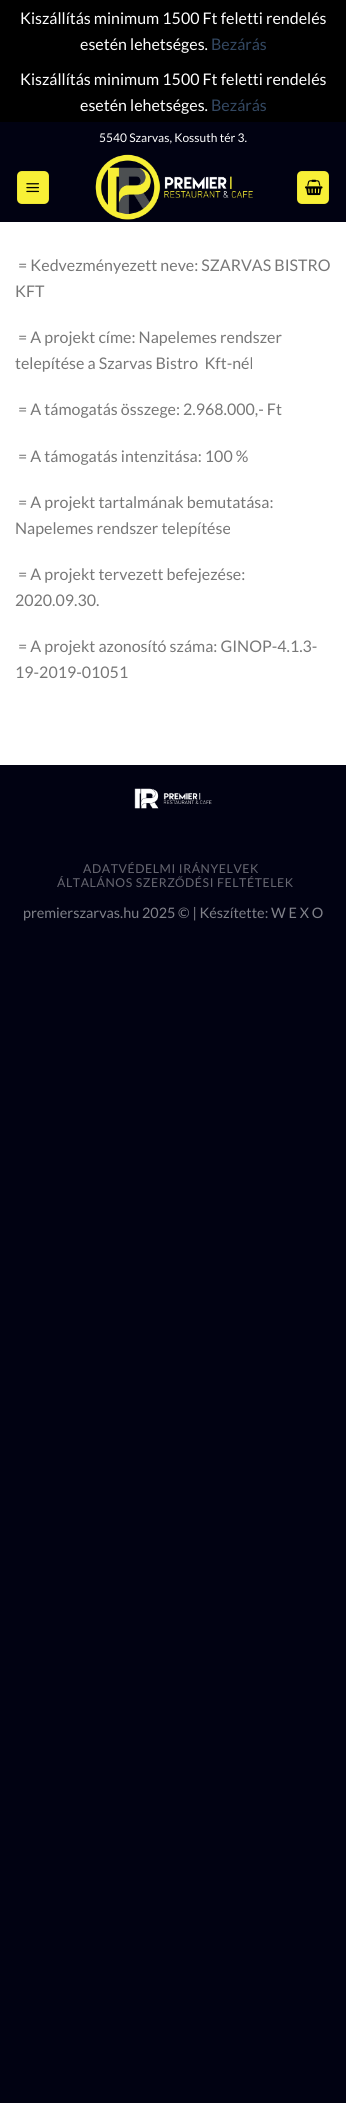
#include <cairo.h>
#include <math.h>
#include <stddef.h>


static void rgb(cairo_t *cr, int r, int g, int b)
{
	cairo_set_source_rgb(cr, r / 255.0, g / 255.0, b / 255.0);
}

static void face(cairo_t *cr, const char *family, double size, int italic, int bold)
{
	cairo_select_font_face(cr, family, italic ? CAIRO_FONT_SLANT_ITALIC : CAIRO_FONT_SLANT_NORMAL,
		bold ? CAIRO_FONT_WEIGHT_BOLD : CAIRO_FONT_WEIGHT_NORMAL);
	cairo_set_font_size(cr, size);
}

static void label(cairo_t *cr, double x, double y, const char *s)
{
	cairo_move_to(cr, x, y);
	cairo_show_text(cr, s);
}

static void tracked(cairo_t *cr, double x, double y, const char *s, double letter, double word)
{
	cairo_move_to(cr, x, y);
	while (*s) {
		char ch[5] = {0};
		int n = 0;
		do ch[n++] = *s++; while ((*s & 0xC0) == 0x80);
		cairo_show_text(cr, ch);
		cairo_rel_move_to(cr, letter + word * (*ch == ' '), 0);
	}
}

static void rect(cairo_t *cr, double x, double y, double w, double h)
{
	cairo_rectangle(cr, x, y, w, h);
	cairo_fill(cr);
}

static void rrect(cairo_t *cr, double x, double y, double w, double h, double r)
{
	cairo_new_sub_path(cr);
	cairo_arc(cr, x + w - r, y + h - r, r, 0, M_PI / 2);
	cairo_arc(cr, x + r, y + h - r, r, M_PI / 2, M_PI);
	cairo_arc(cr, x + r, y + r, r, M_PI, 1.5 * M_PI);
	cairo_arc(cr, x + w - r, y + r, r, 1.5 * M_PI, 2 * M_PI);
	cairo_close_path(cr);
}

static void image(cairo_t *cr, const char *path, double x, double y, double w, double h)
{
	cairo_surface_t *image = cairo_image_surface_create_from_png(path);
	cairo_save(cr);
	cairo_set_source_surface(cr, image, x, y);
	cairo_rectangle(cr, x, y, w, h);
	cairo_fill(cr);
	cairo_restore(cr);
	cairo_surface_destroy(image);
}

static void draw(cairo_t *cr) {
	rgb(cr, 1, 2, 18);
	cairo_paint(cr);
	rgb(cr, 0, 0, 0);
	rect(cr, 0, 0, 346, 122);
	face(cr, "Lato", 16, 0, 0);
	rgb(cr, 255, 255, 255);
	label(cr, 20, 24, "Kiszállítás minimum 1500 Ft feletti rendelés");
	label(cr, 80, 50, "esetén lehetséges.");
	rgb(cr, 51, 72, 98);
	label(cr, 211, 50, "Bezárás");
	rgb(cr, 255, 255, 255);
	label(cr, 20, 85, "Kiszállítás minimum 1500 Ft feletti rendelés");
	label(cr, 80, 111, "esetén lehetséges.");
	rgb(cr, 51, 72, 98);
	label(cr, 211, 111, "Bezárás");
	rgb(cr, 255, 255, 255);
	rect(cr, 0, 222, 346, 543);
	face(cr, "Lato", 12, 0, 0);
	label(cr, 99, 142, "5540 Szarvas, Kossuth tér 3.");
	rgb(cr, 248, 240, 54);
	rrect(cr, 17, 171, 32, 33, 5);
	cairo_fill(cr);
	cairo_rectangle(cr, 17.5, 171.5, 31, 32);
	cairo_set_source_rgba(cr, 0, 0, 0, 0.05);
	cairo_set_line_width(cr, 1);
	cairo_stroke(cr);
	image(cr, "image0.png", 26, 183, 13, 10);
	image(cr, "image1.png", 95, 154, 158, 66);
	rgb(cr, 248, 240, 54);
	rrect(cr, 297, 171, 32, 33, 5);
	cairo_fill(cr);
	cairo_rectangle(cr, 297.5, 171.5, 31, 32);
	cairo_set_source_rgba(cr, 0, 0, 0, 0.05);
	cairo_stroke(cr);
	image(cr, "image2.png", 305, 179, 18, 17);
	face(cr, "Lato", 16, 0, 0);
	rgb(cr, 119, 119, 119);
	label(cr, 18, 271, "= Kedvezményezett neve: SZARVAS BISTRO");
	label(cr, 15, 297, "KFT");
	label(cr, 18, 343, "= A projekt címe: Napelemes rendszer");
	label(cr, 15, 369, "telepítése a Szarvas Bistro  Kft-nél");
	label(cr, 18, 415, "= A támogatás összege: 2.968.000,- Ft");
	label(cr, 18, 462, "= A támogatás intenzitása: 100 %");
	label(cr, 18, 508, "= A projekt tartalmának bemutatása:");
	label(cr, 15, 534, "Napelemes rendszer telepítése");
	label(cr, 18, 580, "= A projekt tervezett befejezése:");
	label(cr, 15, 606, "2020.09.30.");
	label(cr, 18, 652, "= A projekt azonosító száma: GINOP-4.1.3-");
	label(cr, 15, 678, "19-2019-01051");
	image(cr, "image3.png", 134, 788, 78, 21);
	face(cr, "Lato", 12.25, 0, 0);
	rgb(cr, 103, 103, 113);
	tracked(cr, 83, 873, "ADATVÉDELMI IRÁNYELVEK", 0.6, 0);
	tracked(cr, 57, 887, "ÁLTALÁNOS SZERZ", 0.6, 0);
	face(cr, "Liberation Sans", 12.25, 0, 0);
	tracked(cr, 175, 887, "Ő", 0.6, 0);
	face(cr, "Lato", 12.25, 0, 0);
	tracked(cr, 185, 887, "DÉSI FELTÉTELEK", 0.6, 0);
	face(cr, "Lato", 14.4, 0, 0);
	rgb(cr, 128, 129, 137);
	label(cr, 23, 918, "premierszarvas.hu 2025 © | Készítette: W E X O");
}

int main(void) {
	cairo_surface_t *surface = cairo_image_surface_create(CAIRO_FORMAT_RGB24, 346, 2103);
	cairo_t *cr = cairo_create(surface);
	cairo_font_options_t *options = cairo_font_options_create();
	cairo_font_options_set_hint_metrics(options, CAIRO_HINT_METRICS_OFF);
	cairo_font_options_set_hint_style(options, CAIRO_HINT_STYLE_NONE);
	cairo_set_font_options(cr, options);
	cairo_set_miter_limit(cr, 4);
	draw(cr);
	cairo_surface_write_to_png(surface, "render.png");
	cairo_font_options_destroy(options);
	cairo_destroy(cr);
	cairo_surface_destroy(surface);
	return 0;
}
